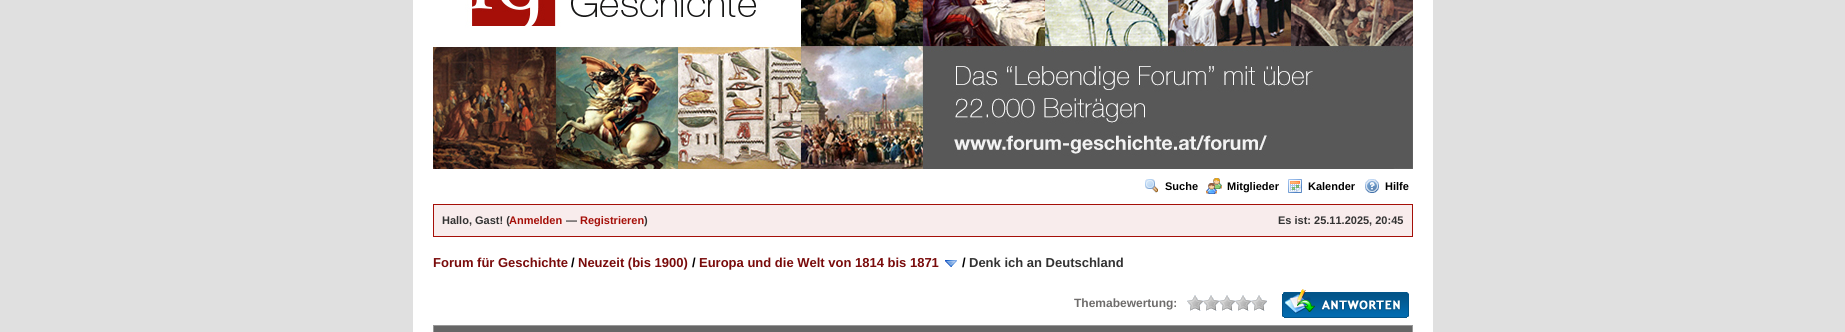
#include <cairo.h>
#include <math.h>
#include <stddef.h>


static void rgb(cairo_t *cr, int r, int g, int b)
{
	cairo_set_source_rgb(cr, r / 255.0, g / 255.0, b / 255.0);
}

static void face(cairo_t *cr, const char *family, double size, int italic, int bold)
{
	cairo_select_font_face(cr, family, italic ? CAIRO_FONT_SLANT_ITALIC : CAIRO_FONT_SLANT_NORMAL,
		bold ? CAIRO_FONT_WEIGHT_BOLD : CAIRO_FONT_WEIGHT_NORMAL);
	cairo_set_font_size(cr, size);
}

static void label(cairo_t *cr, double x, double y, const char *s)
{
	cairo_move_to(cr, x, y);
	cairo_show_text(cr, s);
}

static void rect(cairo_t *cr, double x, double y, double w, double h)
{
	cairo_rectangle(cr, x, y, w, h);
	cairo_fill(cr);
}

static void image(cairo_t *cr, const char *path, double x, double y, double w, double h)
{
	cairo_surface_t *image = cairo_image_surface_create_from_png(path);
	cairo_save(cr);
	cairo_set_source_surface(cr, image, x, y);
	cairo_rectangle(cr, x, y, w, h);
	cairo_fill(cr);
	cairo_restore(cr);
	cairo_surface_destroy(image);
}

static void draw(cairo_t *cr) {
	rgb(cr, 224, 224, 224);
	cairo_paint(cr);
	rgb(cr, 255, 255, 255);
	rect(cr, 413, 0, 1020, 332);
	image(cr, "image0.png", 433, 0, 980, 169);
	image(cr, "image1.png", 1145, 179, 13, 14);
	face(cr, "Liberation Sans", 11, 0, 1);
	rgb(cr, 0, 0, 0);
	label(cr, 1165, 190, "Suche");
	image(cr, "image2.png", 1206, 178, 16, 16);
	label(cr, 1227, 190, "Mitglieder");
	image(cr, "image3.png", 1288, 179, 14, 14);
	label(cr, 1308, 190, "Kalender");
	image(cr, "image4.png", 1365, 179, 14, 14);
	label(cr, 1385, 190, "Hilfe");
	rgb(cr, 248, 236, 236);
	cairo_rectangle(cr, 433.5, 204.5, 979, 32);
	cairo_fill_preserve(cr);
	rgb(cr, 165, 15, 8);
	cairo_set_line_width(cr, 1);
	cairo_stroke(cr);
	rgb(cr, 51, 51, 51);
	label(cr, 442, 224, "Hallo, Gast! (");
	rgb(cr, 165, 15, 8);
	label(cr, 509, 224, "Anmelden");
	rgb(cr, 51, 51, 51);
	label(cr, 566, 224, "—");
	rgb(cr, 165, 15, 8);
	label(cr, 580, 224, "Registrieren");
	rgb(cr, 51, 51, 51);
	label(cr, 644, 224, ")");
	label(cr, 1278, 224, "Es ist: 25.11.2025, 20:45");
	face(cr, "Liberation Sans", 13, 0, 1);
	rgb(cr, 121, 11, 11);
	label(cr, 433, 267, "Forum für Geschichte");
	rgb(cr, 0, 0, 0);
	label(cr, 571, 267, "/");
	rgb(cr, 121, 11, 11);
	label(cr, 578, 267, "Neuzeit (bis 1900)");
	rgb(cr, 0, 0, 0);
	label(cr, 692, 267, "/");
	rgb(cr, 121, 11, 11);
	label(cr, 699, 267, "Europa und die Welt von 1814 bis 1871");
	image(cr, "image5.png", 945, 260, 12, 7);
	rgb(cr, 0, 0, 0);
	label(cr, 962, 267, "/");
	rgb(cr, 51, 51, 51);
	label(cr, 969, 267, "Denk ich an Deutschland");
	face(cr, "Liberation Sans", 12, 0, 1);
	rgb(cr, 110, 108, 107);
	label(cr, 1074, 307, "Themabewertung:");
	image(cr, "image6.png", 1187, 295, 80, 16);
	image(cr, "image7.png", 1282, 289, 127, 29);
	rgb(cr, 153, 153, 153);
	rect(cr, 433, 325, 980, 7);
	rgb(cr, 102, 102, 102);
	rect(cr, 434, 326, 978, 6);
}

int main(void) {
	cairo_surface_t *surface = cairo_image_surface_create(CAIRO_FORMAT_RGB24, 1845, 332);
	cairo_t *cr = cairo_create(surface);
	cairo_font_options_t *options = cairo_font_options_create();
	cairo_font_options_set_hint_metrics(options, CAIRO_HINT_METRICS_OFF);
	cairo_font_options_set_hint_style(options, CAIRO_HINT_STYLE_NONE);
	cairo_set_font_options(cr, options);
	cairo_set_miter_limit(cr, 4);
	draw(cr);
	cairo_surface_write_to_png(surface, "render.png");
	cairo_font_options_destroy(options);
	cairo_destroy(cr);
	cairo_surface_destroy(surface);
	return 0;
}
